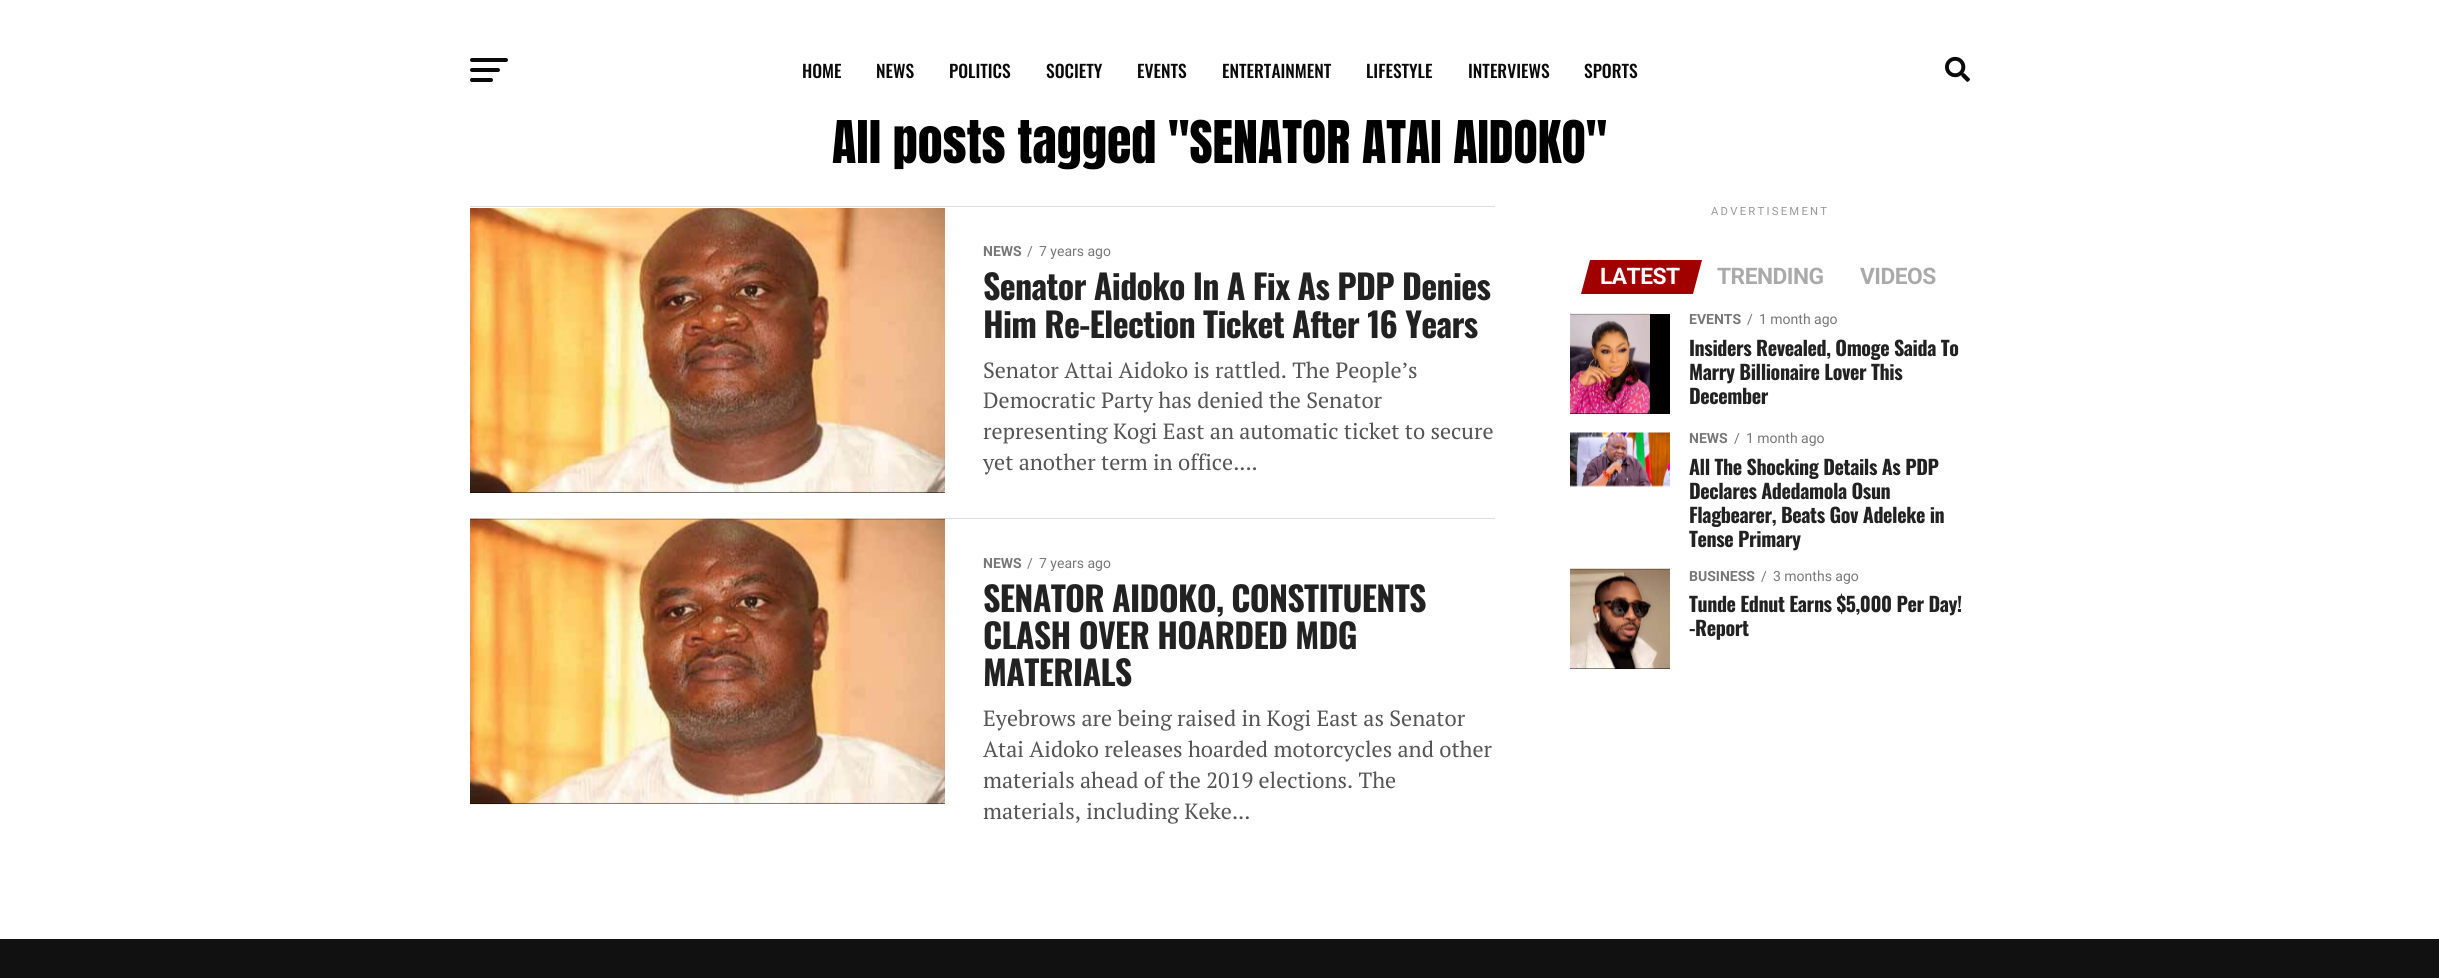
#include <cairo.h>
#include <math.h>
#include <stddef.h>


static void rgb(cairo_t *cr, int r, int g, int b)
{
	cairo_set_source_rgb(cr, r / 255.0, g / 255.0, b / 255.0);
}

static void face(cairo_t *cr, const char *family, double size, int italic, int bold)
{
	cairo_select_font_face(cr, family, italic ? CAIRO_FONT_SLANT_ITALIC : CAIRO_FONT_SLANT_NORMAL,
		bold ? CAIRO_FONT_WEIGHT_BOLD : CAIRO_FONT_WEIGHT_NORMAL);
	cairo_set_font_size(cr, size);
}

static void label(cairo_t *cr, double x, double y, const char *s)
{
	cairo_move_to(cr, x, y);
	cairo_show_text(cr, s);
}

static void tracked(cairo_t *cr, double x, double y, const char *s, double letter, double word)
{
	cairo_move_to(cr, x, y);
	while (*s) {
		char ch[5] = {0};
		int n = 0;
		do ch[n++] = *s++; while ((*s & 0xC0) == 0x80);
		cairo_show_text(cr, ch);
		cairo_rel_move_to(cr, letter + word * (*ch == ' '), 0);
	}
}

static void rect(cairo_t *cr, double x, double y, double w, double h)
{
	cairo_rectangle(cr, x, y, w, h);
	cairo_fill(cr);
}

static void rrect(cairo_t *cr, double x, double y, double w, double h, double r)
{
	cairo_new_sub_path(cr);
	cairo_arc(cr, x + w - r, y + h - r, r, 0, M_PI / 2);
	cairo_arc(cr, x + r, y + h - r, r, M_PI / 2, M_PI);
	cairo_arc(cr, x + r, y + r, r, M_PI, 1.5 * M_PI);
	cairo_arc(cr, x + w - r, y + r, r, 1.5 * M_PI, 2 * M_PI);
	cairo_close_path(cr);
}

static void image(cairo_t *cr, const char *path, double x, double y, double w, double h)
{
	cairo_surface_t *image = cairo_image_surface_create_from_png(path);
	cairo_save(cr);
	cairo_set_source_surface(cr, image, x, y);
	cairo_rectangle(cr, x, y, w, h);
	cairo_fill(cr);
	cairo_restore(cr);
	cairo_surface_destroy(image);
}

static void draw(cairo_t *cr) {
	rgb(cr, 255, 255, 255);
	cairo_paint(cr);
	rgb(cr, 10, 10, 10);
	rrect(cr, 470, 58, 38, 4, 2);
	cairo_fill(cr);
	rrect(cr, 470, 68, 30, 4, 2);
	cairo_fill(cr);
	rrect(cr, 470, 78, 23, 4, 2);
	cairo_fill(cr);
	face(cr, "Oswald Medium", 17.5, 0, 0);
	label(cr, 802, 78, "HOME");
	label(cr, 876, 78, "NEWS");
	label(cr, 949, 78, "POLITICS");
	label(cr, 1046, 78, "SOCIETY");
	label(cr, 1137, 78, "EVENTS");
	label(cr, 1222, 78, "ENTERTAINMENT");
	label(cr, 1366, 78, "LIFESTYLE");
	label(cr, 1468, 78, "INTERVIEWS");
	label(cr, 1584, 78, "SPORTS");
	image(cr, "image0.png", 1945, 56, 25, 26);
	face(cr, "Anton", 50, 0, 0);
	rgb(cr, 0, 0, 0);
	label(cr, 832, 163, "All posts tagged \"SENATOR ATAI AIDOKO\"");
	rgb(cr, 221, 221, 221);
	rect(cr, 470, 206, 1025, 1);
	rgb(cr, 0, 0, 0);
	rect(cr, 470, 492, 475, 1);
	image(cr, "image1.png", 470, 208, 475, 285);
	face(cr, "Roboto", 14, 0, 1);
	rgb(cr, 119, 119, 119);
	label(cr, 983, 256, "NEWS");
	face(cr, "Roboto", 14, 0, 0);
	label(cr, 1027, 256, "/");
	label(cr, 1039, 256, "7 years ago");
	face(cr, "Oswald", 34, 0, 1);
	rgb(cr, 34, 34, 34);
	tracked(cr, 983, 300, "Senator Aidoko In A Fix As PDP Denies", -0.7, 0);
	tracked(cr, 983, 338, "Him Re-Election Ticket After 16 Years", -0.7, 0);
	face(cr, "PT Serif", 22, 0, 0);
	rgb(cr, 85, 85, 85);
	label(cr, 983, 378, "Senator Attai Aidoko is rattled. The People’s");
	label(cr, 983, 408, "Democratic Party has denied the Senator");
	label(cr, 983, 439, "representing Kogi East an automatic ticket to secure");
	label(cr, 983, 470, "yet another term in office....");
	rgb(cr, 221, 221, 221);
	rect(cr, 470, 518, 1025, 1);
	rgb(cr, 0, 0, 0);
	rect(cr, 470, 519, 475, 285);
	image(cr, "image2.png", 470, 518, 475, 287);
	face(cr, "Roboto", 14, 0, 1);
	rgb(cr, 119, 119, 119);
	label(cr, 983, 568, "NEWS");
	face(cr, "Roboto", 14, 0, 0);
	label(cr, 1027, 568, "/");
	label(cr, 1039, 568, "7 years ago");
	face(cr, "Oswald", 34, 0, 1);
	rgb(cr, 34, 34, 34);
	tracked(cr, 983, 612, "SENATOR AIDOKO, CONSTITUENTS", -0.7, 0);
	tracked(cr, 983, 649, "CLASH OVER HOARDED MDG", -0.7, 0);
	tracked(cr, 983, 686, "MATERIALS", -0.7, 0);
	face(cr, "PT Serif", 22, 0, 0);
	rgb(cr, 85, 85, 85);
	label(cr, 983, 726, "Eyebrows are being raised in Kogi East as Senator");
	label(cr, 983, 757, "Atai Aidoko releases hoarded motorcycles and other");
	label(cr, 983, 788, "materials ahead of the 2019 elections. The");
	label(cr, 983, 819, "materials, including Keke...");
	face(cr, "Roboto", 11.25, 0, 0);
	rgb(cr, 153, 153, 153);
	tracked(cr, 1711, 215, "ADVERTISEMENT", 2.25, 0);
	rgb(cr, 160, 0, 0);
	cairo_new_path(cr);
	cairo_move_to(cr, 1590, 260);
	cairo_line_to(cr, 1702, 260);
	cairo_line_to(cr, 1693, 294);
	cairo_line_to(cr, 1581, 294);
	cairo_close_path(cr);
	cairo_fill(cr);
	face(cr, "Roboto", 22.75, 0, 1);
	rgb(cr, 255, 255, 255);
	tracked(cr, 1600, 284, "LATEST", -0.5, 0);
	rgb(cr, 170, 170, 170);
	tracked(cr, 1717, 284, "TRENDING", -0.5, 0);
	tracked(cr, 1860, 284, "VIDEOS", -0.5, 0);
	rgb(cr, 0, 0, 0);
	rect(cr, 1570, 314, 100, 100);
	image(cr, "image3.png", 1570, 313, 80, 102);
	face(cr, "Roboto", 14, 0, 1);
	rgb(cr, 119, 119, 119);
	label(cr, 1689, 324, "EVENTS");
	face(cr, "Roboto", 14, 0, 0);
	label(cr, 1747, 324, "/");
	label(cr, 1759, 324, "1 month ago");
	face(cr, "Oswald", 20, 0, 1);
	rgb(cr, 34, 34, 34);
	tracked(cr, 1689, 356, "Insiders Revealed, Omoge Saida To", -0.4, 0);
	tracked(cr, 1689, 380, "Marry Billionaire Lover This", -0.4, 0);
	tracked(cr, 1689, 404, "December", -0.4, 0);
	image(cr, "image4.png", 1570, 432, 100, 55);
	face(cr, "Roboto", 14, 0, 1);
	rgb(cr, 119, 119, 119);
	label(cr, 1689, 443, "NEWS");
	face(cr, "Roboto", 14, 0, 0);
	label(cr, 1734, 443, "/");
	label(cr, 1746, 443, "1 month ago");
	face(cr, "Oswald", 20, 0, 1);
	rgb(cr, 34, 34, 34);
	tracked(cr, 1689, 475, "All The Shocking Details As PDP", -0.4, 0);
	tracked(cr, 1689, 499, "Declares Adedamola Osun", -0.4, 0);
	tracked(cr, 1689, 523, "Flagbearer, Beats Gov Adeleke in", -0.4, 0);
	tracked(cr, 1689, 547, "Tense Primary", -0.4, 0);
	rgb(cr, 0, 0, 0);
	rect(cr, 1570, 569, 100, 100);
	image(cr, "image5.png", 1570, 568, 100, 102);
	face(cr, "Roboto", 14, 0, 1);
	rgb(cr, 119, 119, 119);
	label(cr, 1689, 581, "BUSINESS");
	face(cr, "Roboto", 14, 0, 0);
	label(cr, 1761, 581, "/");
	label(cr, 1773, 581, "3 months ago");
	face(cr, "Oswald", 20, 0, 1);
	rgb(cr, 34, 34, 34);
	tracked(cr, 1689, 612, "Tunde Ednut Earns $5,000 Per Day!", -0.4, 0);
	tracked(cr, 1689, 636, "-Report", -0.4, 0);
	rgb(cr, 17, 17, 17);
	rect(cr, 0, 939, 2439, 39);
}

int main(void) {
	cairo_surface_t *surface = cairo_image_surface_create(CAIRO_FORMAT_RGB24, 2439, 978);
	cairo_t *cr = cairo_create(surface);
	cairo_font_options_t *options = cairo_font_options_create();
	cairo_font_options_set_hint_metrics(options, CAIRO_HINT_METRICS_OFF);
	cairo_font_options_set_hint_style(options, CAIRO_HINT_STYLE_NONE);
	cairo_set_font_options(cr, options);
	cairo_set_miter_limit(cr, 4);
	draw(cr);
	cairo_surface_write_to_png(surface, "render.png");
	cairo_font_options_destroy(options);
	cairo_destroy(cr);
	cairo_surface_destroy(surface);
	return 0;
}
